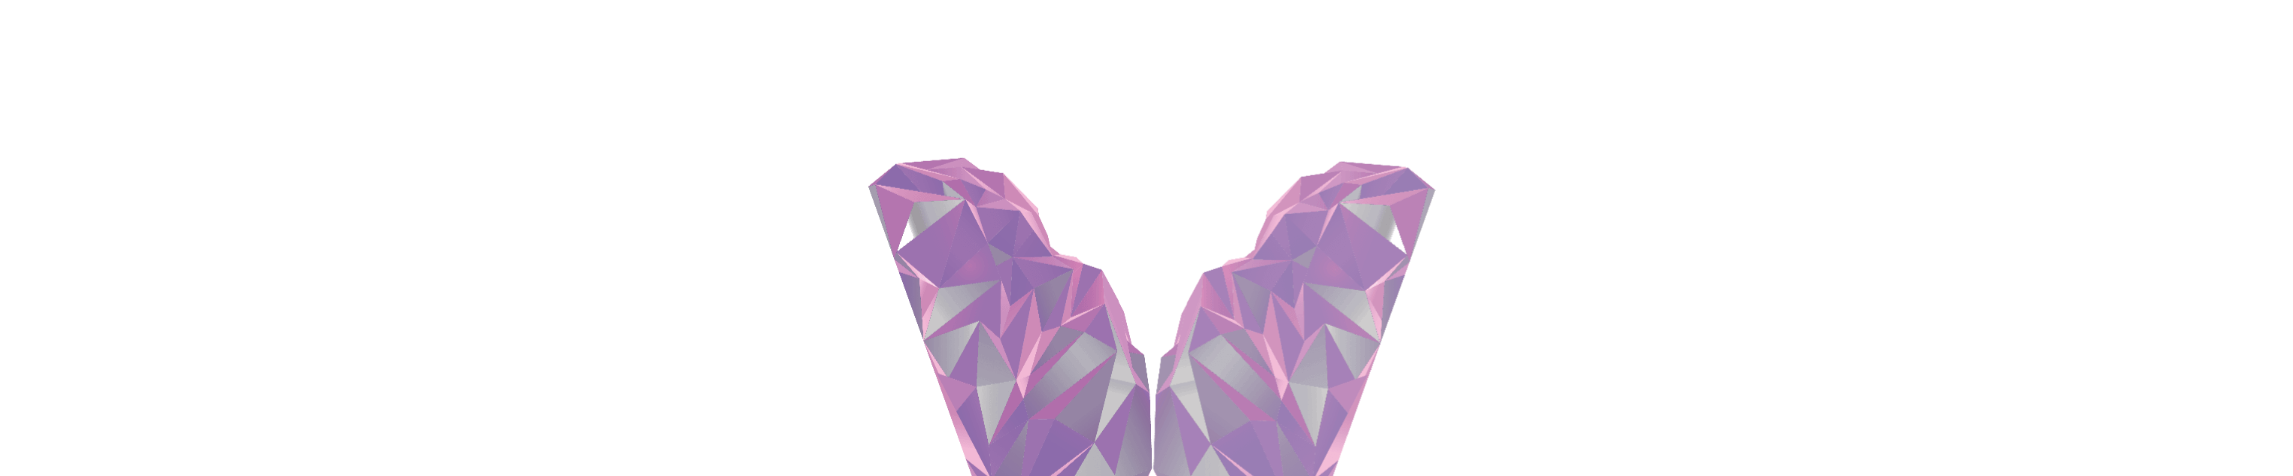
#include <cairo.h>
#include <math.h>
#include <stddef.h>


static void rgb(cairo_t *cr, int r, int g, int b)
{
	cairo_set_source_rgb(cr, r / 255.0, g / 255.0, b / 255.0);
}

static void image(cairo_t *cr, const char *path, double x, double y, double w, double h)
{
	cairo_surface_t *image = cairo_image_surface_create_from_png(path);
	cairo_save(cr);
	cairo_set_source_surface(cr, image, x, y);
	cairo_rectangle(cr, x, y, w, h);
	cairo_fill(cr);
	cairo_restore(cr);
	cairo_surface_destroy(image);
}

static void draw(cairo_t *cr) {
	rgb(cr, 255, 255, 255);
	cairo_paint(cr);
	image(cr, "image0.png", 868, 157, 285, 319);
	image(cr, "image1.png", 1153, 161, 283, 315);
}

int main(void) {
	cairo_surface_t *surface = cairo_image_surface_create(CAIRO_FORMAT_RGB24, 2293, 476);
	cairo_t *cr = cairo_create(surface);
	cairo_font_options_t *options = cairo_font_options_create();
	cairo_font_options_set_hint_metrics(options, CAIRO_HINT_METRICS_OFF);
	cairo_font_options_set_hint_style(options, CAIRO_HINT_STYLE_NONE);
	cairo_set_font_options(cr, options);
	cairo_set_miter_limit(cr, 4);
	draw(cr);
	cairo_surface_write_to_png(surface, "render.png");
	cairo_font_options_destroy(options);
	cairo_destroy(cr);
	cairo_surface_destroy(surface);
	return 0;
}
